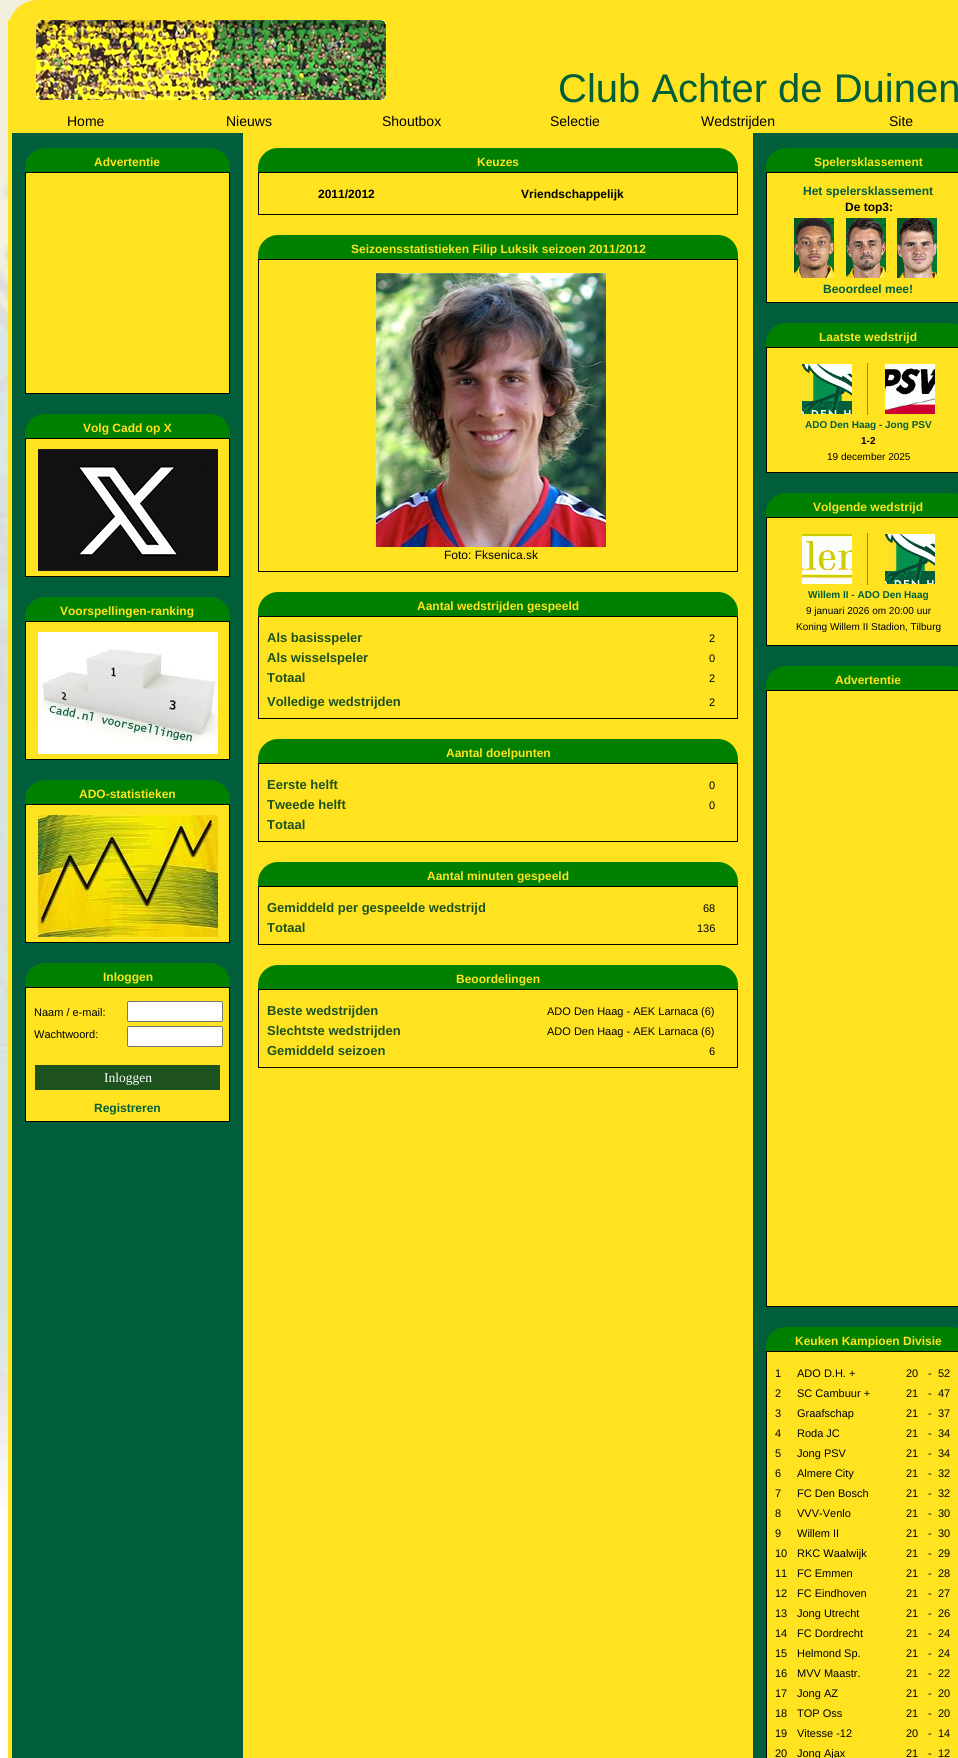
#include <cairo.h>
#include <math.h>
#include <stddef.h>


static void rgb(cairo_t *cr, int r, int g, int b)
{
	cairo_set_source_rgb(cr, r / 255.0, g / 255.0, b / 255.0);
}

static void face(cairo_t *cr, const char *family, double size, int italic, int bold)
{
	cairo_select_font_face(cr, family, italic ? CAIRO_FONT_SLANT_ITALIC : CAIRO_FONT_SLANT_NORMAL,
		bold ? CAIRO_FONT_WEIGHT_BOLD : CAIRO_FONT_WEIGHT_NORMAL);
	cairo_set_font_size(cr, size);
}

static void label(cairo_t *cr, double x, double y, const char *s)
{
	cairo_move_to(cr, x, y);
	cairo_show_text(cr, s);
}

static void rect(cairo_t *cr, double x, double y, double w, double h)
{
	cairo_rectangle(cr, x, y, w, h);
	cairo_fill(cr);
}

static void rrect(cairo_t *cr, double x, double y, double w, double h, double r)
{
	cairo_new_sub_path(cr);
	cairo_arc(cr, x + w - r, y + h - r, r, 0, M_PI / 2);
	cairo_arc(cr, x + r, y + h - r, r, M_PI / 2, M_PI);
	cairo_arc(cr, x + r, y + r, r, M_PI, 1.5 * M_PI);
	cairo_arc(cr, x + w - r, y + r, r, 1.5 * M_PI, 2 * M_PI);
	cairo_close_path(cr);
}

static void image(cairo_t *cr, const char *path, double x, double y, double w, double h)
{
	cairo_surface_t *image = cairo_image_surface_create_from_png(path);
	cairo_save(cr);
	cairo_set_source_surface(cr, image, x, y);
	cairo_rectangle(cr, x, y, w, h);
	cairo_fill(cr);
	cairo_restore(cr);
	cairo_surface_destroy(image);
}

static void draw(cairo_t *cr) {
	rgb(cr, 255, 255, 255);
	cairo_paint(cr);
	image(cr, "image0.png", 0, 0, 38, 1507);
	rgb(cr, 255, 227, 32);
	rrect(cr, 8, 0, 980, 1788, 30);
	cairo_fill(cr);
	rect(cr, 8, 20, 2, 10);
	image(cr, "image1.png", 36, 20, 350, 80);
	image(cr, "image2.png", 36, 20, 4, 4);
	image(cr, "image3.png", 382, 20, 4, 4);
	image(cr, "image4.png", 36, 96, 4, 4);
	image(cr, "image5.png", 382, 96, 4, 4);
	face(cr, "Liberation Sans", 40, 0, 0);
	rgb(cr, 0, 95, 58);
	label(cr, 558, 102, "Club Achter de Duinen");
	face(cr, "Liberation Sans", 14, 0, 0);
	rgb(cr, 0, 0, 0);
	label(cr, 67, 126, "Home");
	label(cr, 226, 126, "Nieuws");
	label(cr, 382, 126, "Shoutbox");
	label(cr, 550, 126, "Selectie");
	label(cr, 701, 126, "Wedstrijden");
	label(cr, 889, 126, "Site");
	image(cr, "image6.png", 12, 133, 946, 1625);
	rgb(cr, 0, 128, 0);
	cairo_new_path(cr);
	cairo_move_to(cr, 45, 148);
	cairo_line_to(cr, 210, 148);
	cairo_curve_to(cr, 221, 148, 230, 157, 230, 168);
	cairo_line_to(cr, 230, 172);
	cairo_line_to(cr, 25, 172);
	cairo_line_to(cr, 25, 168);
	cairo_curve_to(cr, 25, 157, 34, 148, 45, 148);
	cairo_close_path(cr);
	cairo_fill(cr);
	face(cr, "Liberation Sans", 12, 0, 1);
	rgb(cr, 255, 227, 32);
	label(cr, 94, 166, "Advertentie");
	cairo_rectangle(cr, 25.5, 172.5, 204, 221);
	cairo_fill_preserve(cr);
	rgb(cr, 0, 0, 0);
	cairo_set_line_width(cr, 1);
	cairo_stroke(cr);
	rgb(cr, 0, 128, 0);
	cairo_new_path(cr);
	cairo_move_to(cr, 45, 414);
	cairo_line_to(cr, 210, 414);
	cairo_curve_to(cr, 221, 414, 230, 423, 230, 434);
	cairo_line_to(cr, 230, 438);
	cairo_line_to(cr, 25, 438);
	cairo_line_to(cr, 25, 434);
	cairo_curve_to(cr, 25, 423, 34, 414, 45, 414);
	cairo_close_path(cr);
	cairo_fill(cr);
	rgb(cr, 255, 227, 32);
	label(cr, 83, 432, "Volg Cadd op X");
	cairo_rectangle(cr, 25.5, 438.5, 204, 138);
	cairo_fill_preserve(cr);
	rgb(cr, 0, 0, 0);
	cairo_stroke(cr);
	image(cr, "image7.png", 38, 449, 180, 122);
	rgb(cr, 0, 128, 0);
	cairo_new_path(cr);
	cairo_move_to(cr, 45, 597);
	cairo_line_to(cr, 210, 597);
	cairo_curve_to(cr, 221, 597, 230, 606, 230, 617);
	cairo_line_to(cr, 230, 621);
	cairo_line_to(cr, 25, 621);
	cairo_line_to(cr, 25, 617);
	cairo_curve_to(cr, 25, 606, 34, 597, 45, 597);
	cairo_close_path(cr);
	cairo_fill(cr);
	rgb(cr, 255, 227, 32);
	label(cr, 60, 615, "Voorspellingen-ranking");
	cairo_rectangle(cr, 25.5, 621.5, 204, 138);
	cairo_fill_preserve(cr);
	rgb(cr, 0, 0, 0);
	cairo_stroke(cr);
	image(cr, "image8.png", 38, 632, 180, 122);
	rgb(cr, 0, 128, 0);
	cairo_new_path(cr);
	cairo_move_to(cr, 45, 780);
	cairo_line_to(cr, 210, 780);
	cairo_curve_to(cr, 221, 780, 230, 789, 230, 800);
	cairo_line_to(cr, 230, 804);
	cairo_line_to(cr, 25, 804);
	cairo_line_to(cr, 25, 800);
	cairo_curve_to(cr, 25, 789, 34, 780, 45, 780);
	cairo_close_path(cr);
	cairo_fill(cr);
	rgb(cr, 255, 227, 32);
	label(cr, 79, 798, "ADO-statistieken");
	cairo_rectangle(cr, 25.5, 804.5, 204, 138);
	cairo_fill_preserve(cr);
	rgb(cr, 0, 0, 0);
	cairo_stroke(cr);
	image(cr, "image9.png", 38, 815, 180, 122);
	rgb(cr, 0, 128, 0);
	cairo_new_path(cr);
	cairo_move_to(cr, 45, 963);
	cairo_line_to(cr, 210, 963);
	cairo_curve_to(cr, 221, 963, 230, 972, 230, 983);
	cairo_line_to(cr, 230, 987);
	cairo_line_to(cr, 25, 987);
	cairo_line_to(cr, 25, 983);
	cairo_curve_to(cr, 25, 972, 34, 963, 45, 963);
	cairo_close_path(cr);
	cairo_fill(cr);
	rgb(cr, 255, 227, 32);
	label(cr, 103, 981, "Inloggen");
	cairo_rectangle(cr, 25.5, 987.5, 204, 134);
	cairo_fill_preserve(cr);
	rgb(cr, 0, 0, 0);
	cairo_stroke(cr);
	face(cr, "Liberation Sans", 11, 0, 0);
	label(cr, 34, 1016, "Naam / e-mail:");
	rgb(cr, 255, 255, 255);
	rrect(cr, 127.5, 1001.5, 95, 20, 1.5);
	cairo_fill_preserve(cr);
	rgb(cr, 118, 118, 118);
	cairo_stroke(cr);
	rgb(cr, 0, 0, 0);
	label(cr, 34, 1038, "Wachtwoord:");
	rgb(cr, 255, 255, 255);
	rrect(cr, 127.5, 1026.5, 95, 20, 1.5);
	cairo_fill_preserve(cr);
	rgb(cr, 118, 118, 118);
	cairo_stroke(cr);
	rgb(cr, 29, 82, 30);
	rect(cr, 35, 1065, 185, 25);
	face(cr, "Liberation Serif", 13.5, 0, 0);
	rgb(cr, 255, 255, 255);
	label(cr, 104, 1082, "Inloggen");
	face(cr, "Liberation Sans", 12, 0, 1);
	rgb(cr, 0, 95, 58);
	label(cr, 94, 1112, "Registreren");
	rgb(cr, 0, 128, 0);
	cairo_new_path(cr);
	cairo_move_to(cr, 278, 148);
	cairo_line_to(cr, 718, 148);
	cairo_curve_to(cr, 729, 148, 738, 157, 738, 168);
	cairo_line_to(cr, 738, 172);
	cairo_line_to(cr, 258, 172);
	cairo_line_to(cr, 258, 168);
	cairo_curve_to(cr, 258, 157, 267, 148, 278, 148);
	cairo_close_path(cr);
	cairo_fill(cr);
	rgb(cr, 255, 227, 32);
	label(cr, 477, 166, "Keuzes");
	cairo_rectangle(cr, 258.5, 172.5, 479, 42);
	rgb(cr, 0, 0, 0);
	cairo_stroke(cr);
	label(cr, 318, 198, "2011/2012");
	label(cr, 521, 198, "Vriendschappelijk");
	rgb(cr, 0, 128, 0);
	cairo_new_path(cr);
	cairo_move_to(cr, 278, 235);
	cairo_line_to(cr, 718, 235);
	cairo_curve_to(cr, 729, 235, 738, 244, 738, 255);
	cairo_line_to(cr, 738, 259);
	cairo_line_to(cr, 258, 259);
	cairo_line_to(cr, 258, 255);
	cairo_curve_to(cr, 258, 244, 267, 235, 278, 235);
	cairo_close_path(cr);
	cairo_fill(cr);
	rgb(cr, 255, 227, 32);
	label(cr, 351, 253, "Seizoensstatistieken Filip Luksik seizoen 2011/2012");
	cairo_rectangle(cr, 258.5, 259.5, 479, 312);
	rgb(cr, 0, 0, 0);
	cairo_stroke(cr);
	image(cr, "image10.png", 376, 273, 230, 274);
	face(cr, "Liberation Sans", 12, 0, 0);
	label(cr, 444, 559, "Foto: Fksenica.sk");
	rgb(cr, 0, 128, 0);
	cairo_new_path(cr);
	cairo_move_to(cr, 278, 592);
	cairo_line_to(cr, 718, 592);
	cairo_curve_to(cr, 729, 592, 738, 601, 738, 612);
	cairo_line_to(cr, 738, 616);
	cairo_line_to(cr, 258, 616);
	cairo_line_to(cr, 258, 612);
	cairo_curve_to(cr, 258, 601, 267, 592, 278, 592);
	cairo_close_path(cr);
	cairo_fill(cr);
	face(cr, "Liberation Sans", 12, 0, 1);
	rgb(cr, 255, 227, 32);
	label(cr, 417, 610, "Aantal wedstrijden gespeeld");
	cairo_rectangle(cr, 258.5, 616.5, 479, 102);
	rgb(cr, 0, 0, 0);
	cairo_stroke(cr);
	face(cr, "Liberation Sans", 13, 0, 1);
	rgb(cr, 29, 82, 30);
	label(cr, 267, 642, "Als basisspeler");
	face(cr, "Liberation Sans", 11, 0, 0);
	rgb(cr, 0, 0, 0);
	label(cr, 709, 642, "2");
	face(cr, "Liberation Sans", 13, 0, 1);
	rgb(cr, 29, 82, 30);
	label(cr, 267, 662, "Als wisselspeler");
	face(cr, "Liberation Sans", 11, 0, 0);
	rgb(cr, 0, 0, 0);
	label(cr, 709, 662, "0");
	face(cr, "Liberation Sans", 13, 0, 1);
	rgb(cr, 29, 82, 30);
	label(cr, 267, 682, "Totaal");
	face(cr, "Liberation Sans", 11, 0, 0);
	rgb(cr, 0, 0, 0);
	label(cr, 709, 682, "2");
	face(cr, "Liberation Sans", 13, 0, 1);
	rgb(cr, 29, 82, 30);
	label(cr, 267, 706, "Volledige wedstrijden");
	face(cr, "Liberation Sans", 11, 0, 0);
	rgb(cr, 0, 0, 0);
	label(cr, 709, 706, "2");
	rgb(cr, 0, 128, 0);
	cairo_new_path(cr);
	cairo_move_to(cr, 278, 739);
	cairo_line_to(cr, 718, 739);
	cairo_curve_to(cr, 729, 739, 738, 748, 738, 759);
	cairo_line_to(cr, 738, 763);
	cairo_line_to(cr, 258, 763);
	cairo_line_to(cr, 258, 759);
	cairo_curve_to(cr, 258, 748, 267, 739, 278, 739);
	cairo_close_path(cr);
	cairo_fill(cr);
	face(cr, "Liberation Sans", 12, 0, 1);
	rgb(cr, 255, 227, 32);
	label(cr, 446, 757, "Aantal doelpunten");
	cairo_rectangle(cr, 258.5, 763.5, 479, 78);
	rgb(cr, 0, 0, 0);
	cairo_stroke(cr);
	face(cr, "Liberation Sans", 13, 0, 1);
	rgb(cr, 29, 82, 30);
	label(cr, 267, 789, "Eerste helft");
	face(cr, "Liberation Sans", 11, 0, 0);
	rgb(cr, 0, 0, 0);
	label(cr, 709, 789, "0");
	face(cr, "Liberation Sans", 13, 0, 1);
	rgb(cr, 29, 82, 30);
	label(cr, 267, 809, "Tweede helft");
	face(cr, "Liberation Sans", 11, 0, 0);
	rgb(cr, 0, 0, 0);
	label(cr, 709, 809, "0");
	face(cr, "Liberation Sans", 13, 0, 1);
	rgb(cr, 29, 82, 30);
	label(cr, 267, 829, "Totaal");
	rgb(cr, 0, 128, 0);
	cairo_new_path(cr);
	cairo_move_to(cr, 278, 862);
	cairo_line_to(cr, 718, 862);
	cairo_curve_to(cr, 729, 862, 738, 871, 738, 882);
	cairo_line_to(cr, 738, 886);
	cairo_line_to(cr, 258, 886);
	cairo_line_to(cr, 258, 882);
	cairo_curve_to(cr, 258, 871, 267, 862, 278, 862);
	cairo_close_path(cr);
	cairo_fill(cr);
	face(cr, "Liberation Sans", 12, 0, 1);
	rgb(cr, 255, 227, 32);
	label(cr, 427, 880, "Aantal minuten gespeeld");
	cairo_rectangle(cr, 258.5, 886.5, 479, 58);
	rgb(cr, 0, 0, 0);
	cairo_stroke(cr);
	face(cr, "Liberation Sans", 13, 0, 1);
	rgb(cr, 29, 82, 30);
	label(cr, 267, 912, "Gemiddeld per gespeelde wedstrijd");
	face(cr, "Liberation Sans", 11, 0, 0);
	rgb(cr, 0, 0, 0);
	label(cr, 703, 912, "68");
	face(cr, "Liberation Sans", 13, 0, 1);
	rgb(cr, 29, 82, 30);
	label(cr, 267, 932, "Totaal");
	face(cr, "Liberation Sans", 11, 0, 0);
	rgb(cr, 0, 0, 0);
	label(cr, 697, 932, "136");
	rgb(cr, 0, 128, 0);
	cairo_new_path(cr);
	cairo_move_to(cr, 278, 965);
	cairo_line_to(cr, 718, 965);
	cairo_curve_to(cr, 729, 965, 738, 974, 738, 985);
	cairo_line_to(cr, 738, 989);
	cairo_line_to(cr, 258, 989);
	cairo_line_to(cr, 258, 985);
	cairo_curve_to(cr, 258, 974, 267, 965, 278, 965);
	cairo_close_path(cr);
	cairo_fill(cr);
	face(cr, "Liberation Sans", 12, 0, 1);
	rgb(cr, 255, 227, 32);
	label(cr, 456, 983, "Beoordelingen");
	cairo_rectangle(cr, 258.5, 989.5, 479, 78);
	rgb(cr, 0, 0, 0);
	cairo_stroke(cr);
	face(cr, "Liberation Sans", 13, 0, 1);
	rgb(cr, 29, 82, 30);
	label(cr, 267, 1015, "Beste wedstrijden");
	face(cr, "Liberation Sans", 11, 0, 0);
	rgb(cr, 0, 0, 0);
	label(cr, 547, 1015, "ADO Den Haag - AEK Larnaca (6)");
	face(cr, "Liberation Sans", 13, 0, 1);
	rgb(cr, 29, 82, 30);
	label(cr, 267, 1035, "Slechtste wedstrijden");
	face(cr, "Liberation Sans", 11, 0, 0);
	rgb(cr, 0, 0, 0);
	label(cr, 547, 1035, "ADO Den Haag - AEK Larnaca (6)");
	face(cr, "Liberation Sans", 13, 0, 1);
	rgb(cr, 29, 82, 30);
	label(cr, 267, 1055, "Gemiddeld seizoen");
	face(cr, "Liberation Sans", 11, 0, 0);
	rgb(cr, 0, 0, 0);
	label(cr, 709, 1055, "6");
	rgb(cr, 0, 128, 0);
	cairo_new_path(cr);
	cairo_move_to(cr, 786, 148);
	cairo_line_to(cr, 951, 148);
	cairo_curve_to(cr, 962, 148, 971, 157, 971, 168);
	cairo_line_to(cr, 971, 172);
	cairo_line_to(cr, 766, 172);
	cairo_line_to(cr, 766, 168);
	cairo_curve_to(cr, 766, 157, 775, 148, 786, 148);
	cairo_close_path(cr);
	cairo_fill(cr);
	face(cr, "Liberation Sans", 12, 0, 1);
	rgb(cr, 255, 227, 32);
	label(cr, 814, 166, "Spelersklassement");
	cairo_rectangle(cr, 766.5, 172.5, 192, 130);
	cairo_fill_preserve(cr);
	rgb(cr, 0, 0, 0);
	cairo_stroke(cr);
	rgb(cr, 0, 95, 58);
	label(cr, 803, 195, "Het spelersklassement");
	rgb(cr, 0, 0, 0);
	label(cr, 845, 211, "De top3:");
	image(cr, "image11.png", 794, 218, 40, 60);
	image(cr, "image12.png", 846, 218, 40, 60);
	image(cr, "image13.png", 897, 218, 40, 60);
	rgb(cr, 0, 95, 58);
	label(cr, 823, 293, "Beoordeel mee!");
	rgb(cr, 0, 128, 0);
	cairo_new_path(cr);
	cairo_move_to(cr, 786, 323);
	cairo_line_to(cr, 951, 323);
	cairo_curve_to(cr, 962, 323, 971, 332, 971, 343);
	cairo_line_to(cr, 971, 347);
	cairo_line_to(cr, 766, 347);
	cairo_line_to(cr, 766, 343);
	cairo_curve_to(cr, 766, 332, 775, 323, 786, 323);
	cairo_close_path(cr);
	cairo_fill(cr);
	rgb(cr, 255, 227, 32);
	label(cr, 819, 341, "Laatste wedstrijd");
	cairo_rectangle(cr, 766.5, 347.5, 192, 125);
	cairo_fill_preserve(cr);
	rgb(cr, 0, 0, 0);
	cairo_stroke(cr);
	rgb(cr, 128, 128, 128);
	rect(cr, 867, 363, 1, 52);
	image(cr, "image14.png", 802, 364, 50, 50);
	image(cr, "image15.png", 885, 364, 50, 50);
	face(cr, "Liberation Sans", 10, 0, 1);
	rgb(cr, 0, 95, 58);
	label(cr, 805, 428, "ADO Den Haag - Jong PSV");
	rgb(cr, 0, 0, 0);
	label(cr, 861, 444, "1-2");
	face(cr, "Liberation Sans", 10, 0, 0);
	label(cr, 827, 460, "19 december 2025");
	rgb(cr, 0, 128, 0);
	cairo_new_path(cr);
	cairo_move_to(cr, 786, 493);
	cairo_line_to(cr, 951, 493);
	cairo_curve_to(cr, 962, 493, 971, 502, 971, 513);
	cairo_line_to(cr, 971, 517);
	cairo_line_to(cr, 766, 517);
	cairo_line_to(cr, 766, 513);
	cairo_curve_to(cr, 766, 502, 775, 493, 786, 493);
	cairo_close_path(cr);
	cairo_fill(cr);
	face(cr, "Liberation Sans", 12, 0, 1);
	rgb(cr, 255, 227, 32);
	label(cr, 813, 511, "Volgende wedstrijd");
	cairo_rectangle(cr, 766.5, 517.5, 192, 128);
	cairo_fill_preserve(cr);
	rgb(cr, 0, 0, 0);
	cairo_stroke(cr);
	rgb(cr, 128, 128, 128);
	rect(cr, 867, 533, 1, 52);
	image(cr, "image16.png", 802, 534, 50, 50);
	image(cr, "image14.png", 885, 534, 50, 50);
	face(cr, "Liberation Sans", 10, 0, 1);
	rgb(cr, 0, 95, 58);
	label(cr, 808, 598, "Willem II - ADO Den Haag");
	face(cr, "Liberation Sans", 10, 0, 0);
	rgb(cr, 0, 0, 0);
	label(cr, 806, 614, "9 januari 2026 om 20:00 uur");
	label(cr, 796, 630, "Koning Willem II Stadion, Tilburg");
	rgb(cr, 0, 128, 0);
	cairo_new_path(cr);
	cairo_move_to(cr, 786, 666);
	cairo_line_to(cr, 951, 666);
	cairo_curve_to(cr, 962, 666, 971, 675, 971, 686);
	cairo_line_to(cr, 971, 690);
	cairo_line_to(cr, 766, 690);
	cairo_line_to(cr, 766, 686);
	cairo_curve_to(cr, 766, 675, 775, 666, 786, 666);
	cairo_close_path(cr);
	cairo_fill(cr);
	face(cr, "Liberation Sans", 12, 0, 1);
	rgb(cr, 255, 227, 32);
	label(cr, 835, 684, "Advertentie");
	cairo_rectangle(cr, 766.5, 690.5, 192, 616);
	cairo_fill_preserve(cr);
	rgb(cr, 0, 0, 0);
	cairo_stroke(cr);
	rgb(cr, 0, 128, 0);
	cairo_new_path(cr);
	cairo_move_to(cr, 786, 1327);
	cairo_line_to(cr, 951, 1327);
	cairo_curve_to(cr, 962, 1327, 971, 1336, 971, 1347);
	cairo_line_to(cr, 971, 1351);
	cairo_line_to(cr, 766, 1351);
	cairo_line_to(cr, 766, 1347);
	cairo_curve_to(cr, 766, 1336, 775, 1327, 786, 1327);
	cairo_close_path(cr);
	cairo_fill(cr);
	rgb(cr, 255, 227, 32);
	label(cr, 795, 1345, "Keuken Kampioen Divisie");
	cairo_rectangle(cr, 766.5, 1351.5, 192, 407);
	cairo_fill_preserve(cr);
	rgb(cr, 0, 0, 0);
	cairo_stroke(cr);
	face(cr, "Liberation Sans", 11, 0, 0);
	label(cr, 775, 1377, "1");
	label(cr, 797, 1377, "ADO D.H. +");
	label(cr, 906, 1377, "20");
	label(cr, 928, 1377, "-");
	label(cr, 938, 1377, "52");
	label(cr, 775, 1397, "2");
	label(cr, 797, 1397, "SC Cambuur +");
	label(cr, 906, 1397, "21");
	label(cr, 928, 1397, "-");
	label(cr, 938, 1397, "47");
	label(cr, 775, 1417, "3");
	label(cr, 797, 1417, "Graafschap");
	label(cr, 906, 1417, "21");
	label(cr, 928, 1417, "-");
	label(cr, 938, 1417, "37");
	label(cr, 775, 1437, "4");
	label(cr, 797, 1437, "Roda JC");
	label(cr, 906, 1437, "21");
	label(cr, 928, 1437, "-");
	label(cr, 938, 1437, "34");
	label(cr, 775, 1457, "5");
	label(cr, 797, 1457, "Jong PSV");
	label(cr, 906, 1457, "21");
	label(cr, 928, 1457, "-");
	label(cr, 938, 1457, "34");
	label(cr, 775, 1477, "6");
	label(cr, 797, 1477, "Almere City");
	label(cr, 906, 1477, "21");
	label(cr, 928, 1477, "-");
	label(cr, 938, 1477, "32");
	label(cr, 775, 1497, "7");
	label(cr, 797, 1497, "FC Den Bosch");
	label(cr, 906, 1497, "21");
	label(cr, 928, 1497, "-");
	label(cr, 938, 1497, "32");
	label(cr, 775, 1517, "8");
	label(cr, 797, 1517, "VVV-Venlo");
	label(cr, 906, 1517, "21");
	label(cr, 928, 1517, "-");
	label(cr, 938, 1517, "30");
	label(cr, 775, 1537, "9");
	label(cr, 797, 1537, "Willem II");
	label(cr, 906, 1537, "21");
	label(cr, 928, 1537, "-");
	label(cr, 938, 1537, "30");
	label(cr, 775, 1557, "10");
	label(cr, 797, 1557, "RKC Waalwijk");
	label(cr, 906, 1557, "21");
	label(cr, 928, 1557, "-");
	label(cr, 938, 1557, "29");
	label(cr, 775, 1577, "11");
	label(cr, 797, 1577, "FC Emmen");
	label(cr, 906, 1577, "21");
	label(cr, 928, 1577, "-");
	label(cr, 938, 1577, "28");
	label(cr, 775, 1597, "12");
	label(cr, 797, 1597, "FC Eindhoven");
	label(cr, 906, 1597, "21");
	label(cr, 928, 1597, "-");
	label(cr, 938, 1597, "27");
	label(cr, 775, 1617, "13");
	label(cr, 797, 1617, "Jong Utrecht");
	label(cr, 906, 1617, "21");
	label(cr, 928, 1617, "-");
	label(cr, 938, 1617, "26");
	label(cr, 775, 1637, "14");
	label(cr, 797, 1637, "FC Dordrecht");
	label(cr, 906, 1637, "21");
	label(cr, 928, 1637, "-");
	label(cr, 938, 1637, "24");
	label(cr, 775, 1657, "15");
	label(cr, 797, 1657, "Helmond Sp.");
	label(cr, 906, 1657, "21");
	label(cr, 928, 1657, "-");
	label(cr, 938, 1657, "24");
	label(cr, 775, 1677, "16");
	label(cr, 797, 1677, "MVV Maastr.");
	label(cr, 906, 1677, "21");
	label(cr, 928, 1677, "-");
	label(cr, 938, 1677, "22");
	label(cr, 775, 1697, "17");
	label(cr, 797, 1697, "Jong AZ");
	label(cr, 906, 1697, "21");
	label(cr, 928, 1697, "-");
	label(cr, 938, 1697, "20");
	label(cr, 775, 1717, "18");
	label(cr, 797, 1717, "TOP Oss");
	label(cr, 906, 1717, "21");
	label(cr, 928, 1717, "-");
	label(cr, 938, 1717, "20");
	label(cr, 775, 1737, "19");
	label(cr, 797, 1737, "Vitesse -12");
	label(cr, 906, 1737, "20");
	label(cr, 928, 1737, "-");
	label(cr, 938, 1737, "14");
	label(cr, 775, 1757, "20");
	label(cr, 797, 1757, "Jong Ajax");
	label(cr, 906, 1757, "21");
	label(cr, 928, 1757, "-");
	label(cr, 938, 1757, "12");
}

int main(void) {
	cairo_surface_t *surface = cairo_image_surface_create(CAIRO_FORMAT_RGB24, 958, 1758);
	cairo_t *cr = cairo_create(surface);
	cairo_font_options_t *options = cairo_font_options_create();
	cairo_font_options_set_hint_metrics(options, CAIRO_HINT_METRICS_OFF);
	cairo_font_options_set_hint_style(options, CAIRO_HINT_STYLE_NONE);
	cairo_set_font_options(cr, options);
	cairo_set_miter_limit(cr, 4);
	draw(cr);
	cairo_surface_write_to_png(surface, "render.png");
	cairo_font_options_destroy(options);
	cairo_destroy(cr);
	cairo_surface_destroy(surface);
	return 0;
}
